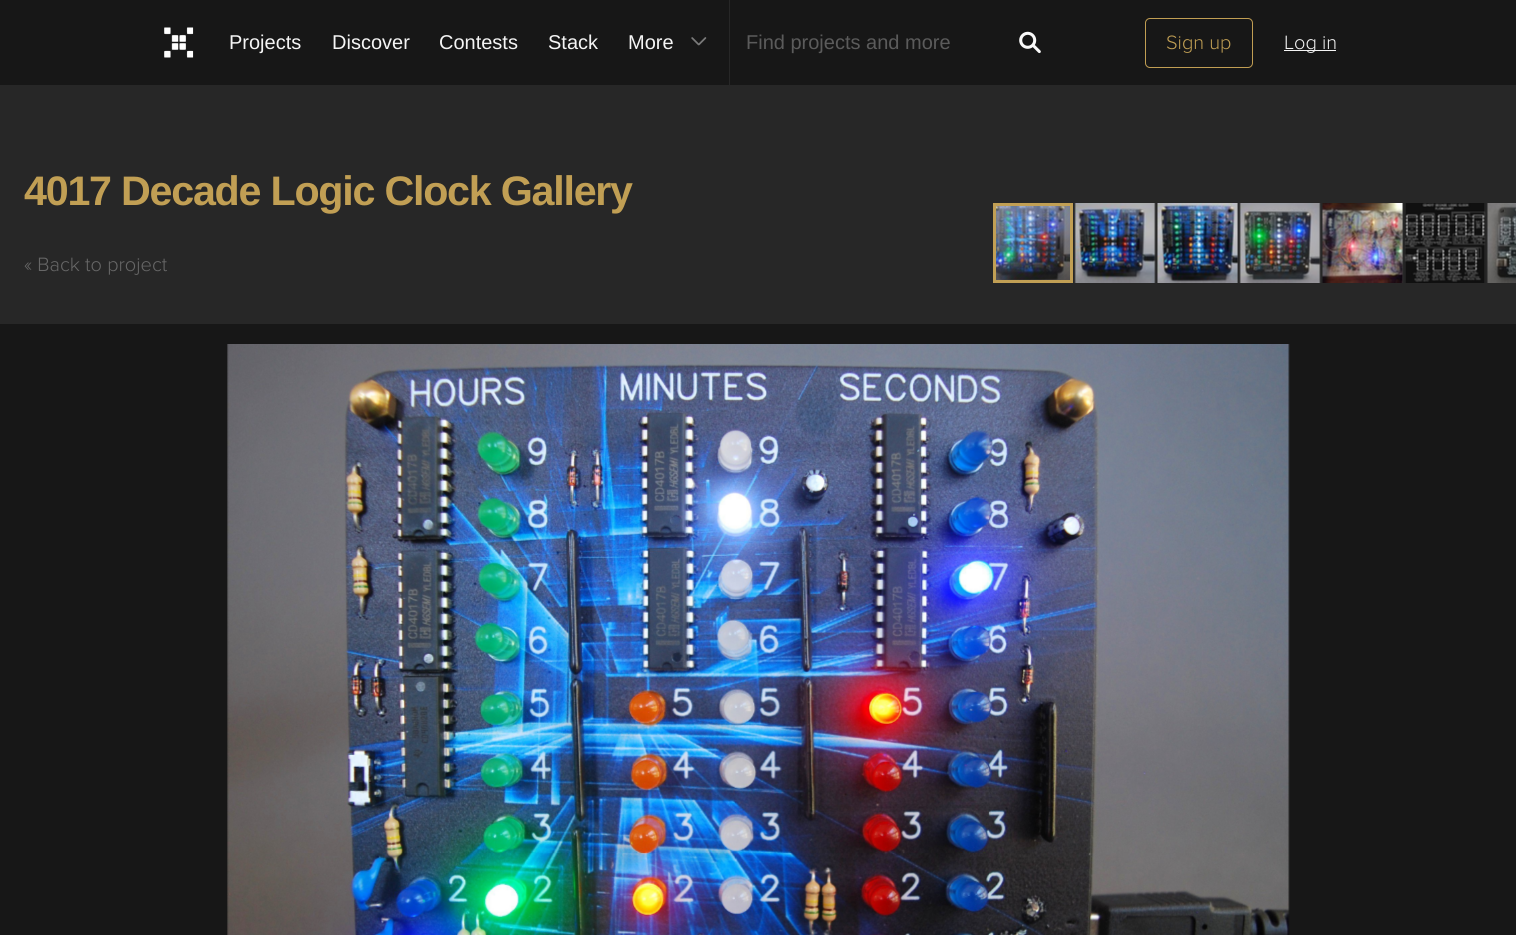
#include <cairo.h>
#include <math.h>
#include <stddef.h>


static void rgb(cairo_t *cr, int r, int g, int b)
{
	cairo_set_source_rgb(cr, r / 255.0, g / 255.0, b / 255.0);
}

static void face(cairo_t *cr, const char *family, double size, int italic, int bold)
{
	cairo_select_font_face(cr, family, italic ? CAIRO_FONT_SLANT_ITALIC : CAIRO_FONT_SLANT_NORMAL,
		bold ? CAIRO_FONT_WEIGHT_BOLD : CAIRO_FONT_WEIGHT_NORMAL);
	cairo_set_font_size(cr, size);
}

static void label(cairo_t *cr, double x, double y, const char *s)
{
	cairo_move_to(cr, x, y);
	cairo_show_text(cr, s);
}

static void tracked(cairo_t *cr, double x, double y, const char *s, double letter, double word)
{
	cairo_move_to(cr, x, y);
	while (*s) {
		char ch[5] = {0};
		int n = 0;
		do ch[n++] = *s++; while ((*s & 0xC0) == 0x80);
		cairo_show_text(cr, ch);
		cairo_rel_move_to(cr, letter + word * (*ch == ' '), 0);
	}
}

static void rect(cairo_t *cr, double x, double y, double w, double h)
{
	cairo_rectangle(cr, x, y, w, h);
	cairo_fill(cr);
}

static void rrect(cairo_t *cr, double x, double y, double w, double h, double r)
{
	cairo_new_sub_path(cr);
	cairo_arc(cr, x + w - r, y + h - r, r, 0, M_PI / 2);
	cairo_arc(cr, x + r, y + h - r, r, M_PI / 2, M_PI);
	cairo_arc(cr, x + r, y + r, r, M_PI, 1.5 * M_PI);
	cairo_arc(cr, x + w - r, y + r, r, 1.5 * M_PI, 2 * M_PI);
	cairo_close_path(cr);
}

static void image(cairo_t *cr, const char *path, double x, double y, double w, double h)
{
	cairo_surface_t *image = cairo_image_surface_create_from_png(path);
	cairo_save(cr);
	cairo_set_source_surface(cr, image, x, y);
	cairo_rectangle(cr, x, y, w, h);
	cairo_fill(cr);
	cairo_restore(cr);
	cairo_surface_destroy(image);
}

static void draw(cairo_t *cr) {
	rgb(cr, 23, 23, 23);
	cairo_paint(cr);
	image(cr, "image0.png", 164, 27, 30, 31);
	face(cr, "Liberation Sans", 20, 0, 0);
	rgb(cr, 245, 245, 245);
	label(cr, 229, 49, "Projects");
	label(cr, 332, 49, "Discover");
	label(cr, 439, 49, "Contests");
	label(cr, 548, 49, "Stack");
	label(cr, 628, 49, "More");
	image(cr, "image1.png", 691, 37, 16, 9);
	rgb(cr, 39, 39, 39);
	rect(cr, 729, 0, 1, 85);
	rgb(cr, 91, 91, 91);
	label(cr, 746, 49, "Find projects and more");
	image(cr, "image2.png", 1019, 31, 22, 23);
	rrect(cr, 1145.5, 18.5, 107, 49, 4.5);
	rgb(cr, 193, 158, 83);
	cairo_set_line_width(cr, 1);
	cairo_stroke(cr);
	face(cr, "Proxima Nova Light", 20, 0, 0);
	rgb(cr, 193, 159, 84);
	label(cr, 1166, 49, "Sign up");
	rgb(cr, 245, 245, 245);
	rect(cr, 1284, 50, 52, 1);
	label(cr, 1284, 49, "Log in");
	rgb(cr, 39, 39, 39);
	rect(cr, 0, 85, 1516, 239);
	face(cr, "Liberation Sans", 41.25, 0, 1);
	rgb(cr, 193, 159, 84);
	tracked(cr, 24, 205, "4017 Decade Logic Clock Gallery", -1.25, 0);
	face(cr, "Proxima Nova Light", 20, 0, 0);
	rgb(cr, 103, 103, 103);
	label(cr, 24, 271, "« Back to project");
	image(cr, "image9.png", 996, 206, 74, 74);
	cairo_rectangle(cr, 994.5, 204.5, 77, 77);
	rgb(cr, 193, 159, 84);
	cairo_set_line_width(cr, 3);
	cairo_stroke(cr);
	rgb(cr, 57, 57, 57);
	rect(cr, 1075, 203, 80, 80);
	image(cr, "image3.png", 1074, 203, 82, 80);
	rect(cr, 1237, 203, 1, 80);
	image(cr, "image4.png", 1157, 203, 81, 80);
	rect(cr, 1240, 203, 80, 80);
	image(cr, "image5.png", 1239, 203, 82, 80);
	rect(cr, 1402, 203, 1, 80);
	image(cr, "image6.png", 1322, 203, 81, 80);
	rect(cr, 1405, 203, 80, 80);
	image(cr, "image7.png", 1404, 203, 82, 80);
	image(cr, "image8.png", 1487, 203, 29, 80);
	image(cr, "image10.png", 227, 344, 1063, 591);
}

int main(void) {
	cairo_surface_t *surface = cairo_image_surface_create(CAIRO_FORMAT_RGB24, 1516, 935);
	cairo_t *cr = cairo_create(surface);
	cairo_font_options_t *options = cairo_font_options_create();
	cairo_font_options_set_hint_metrics(options, CAIRO_HINT_METRICS_OFF);
	cairo_font_options_set_hint_style(options, CAIRO_HINT_STYLE_NONE);
	cairo_set_font_options(cr, options);
	cairo_set_miter_limit(cr, 4);
	draw(cr);
	cairo_surface_write_to_png(surface, "render.png");
	cairo_font_options_destroy(options);
	cairo_destroy(cr);
	cairo_surface_destroy(surface);
	return 0;
}
